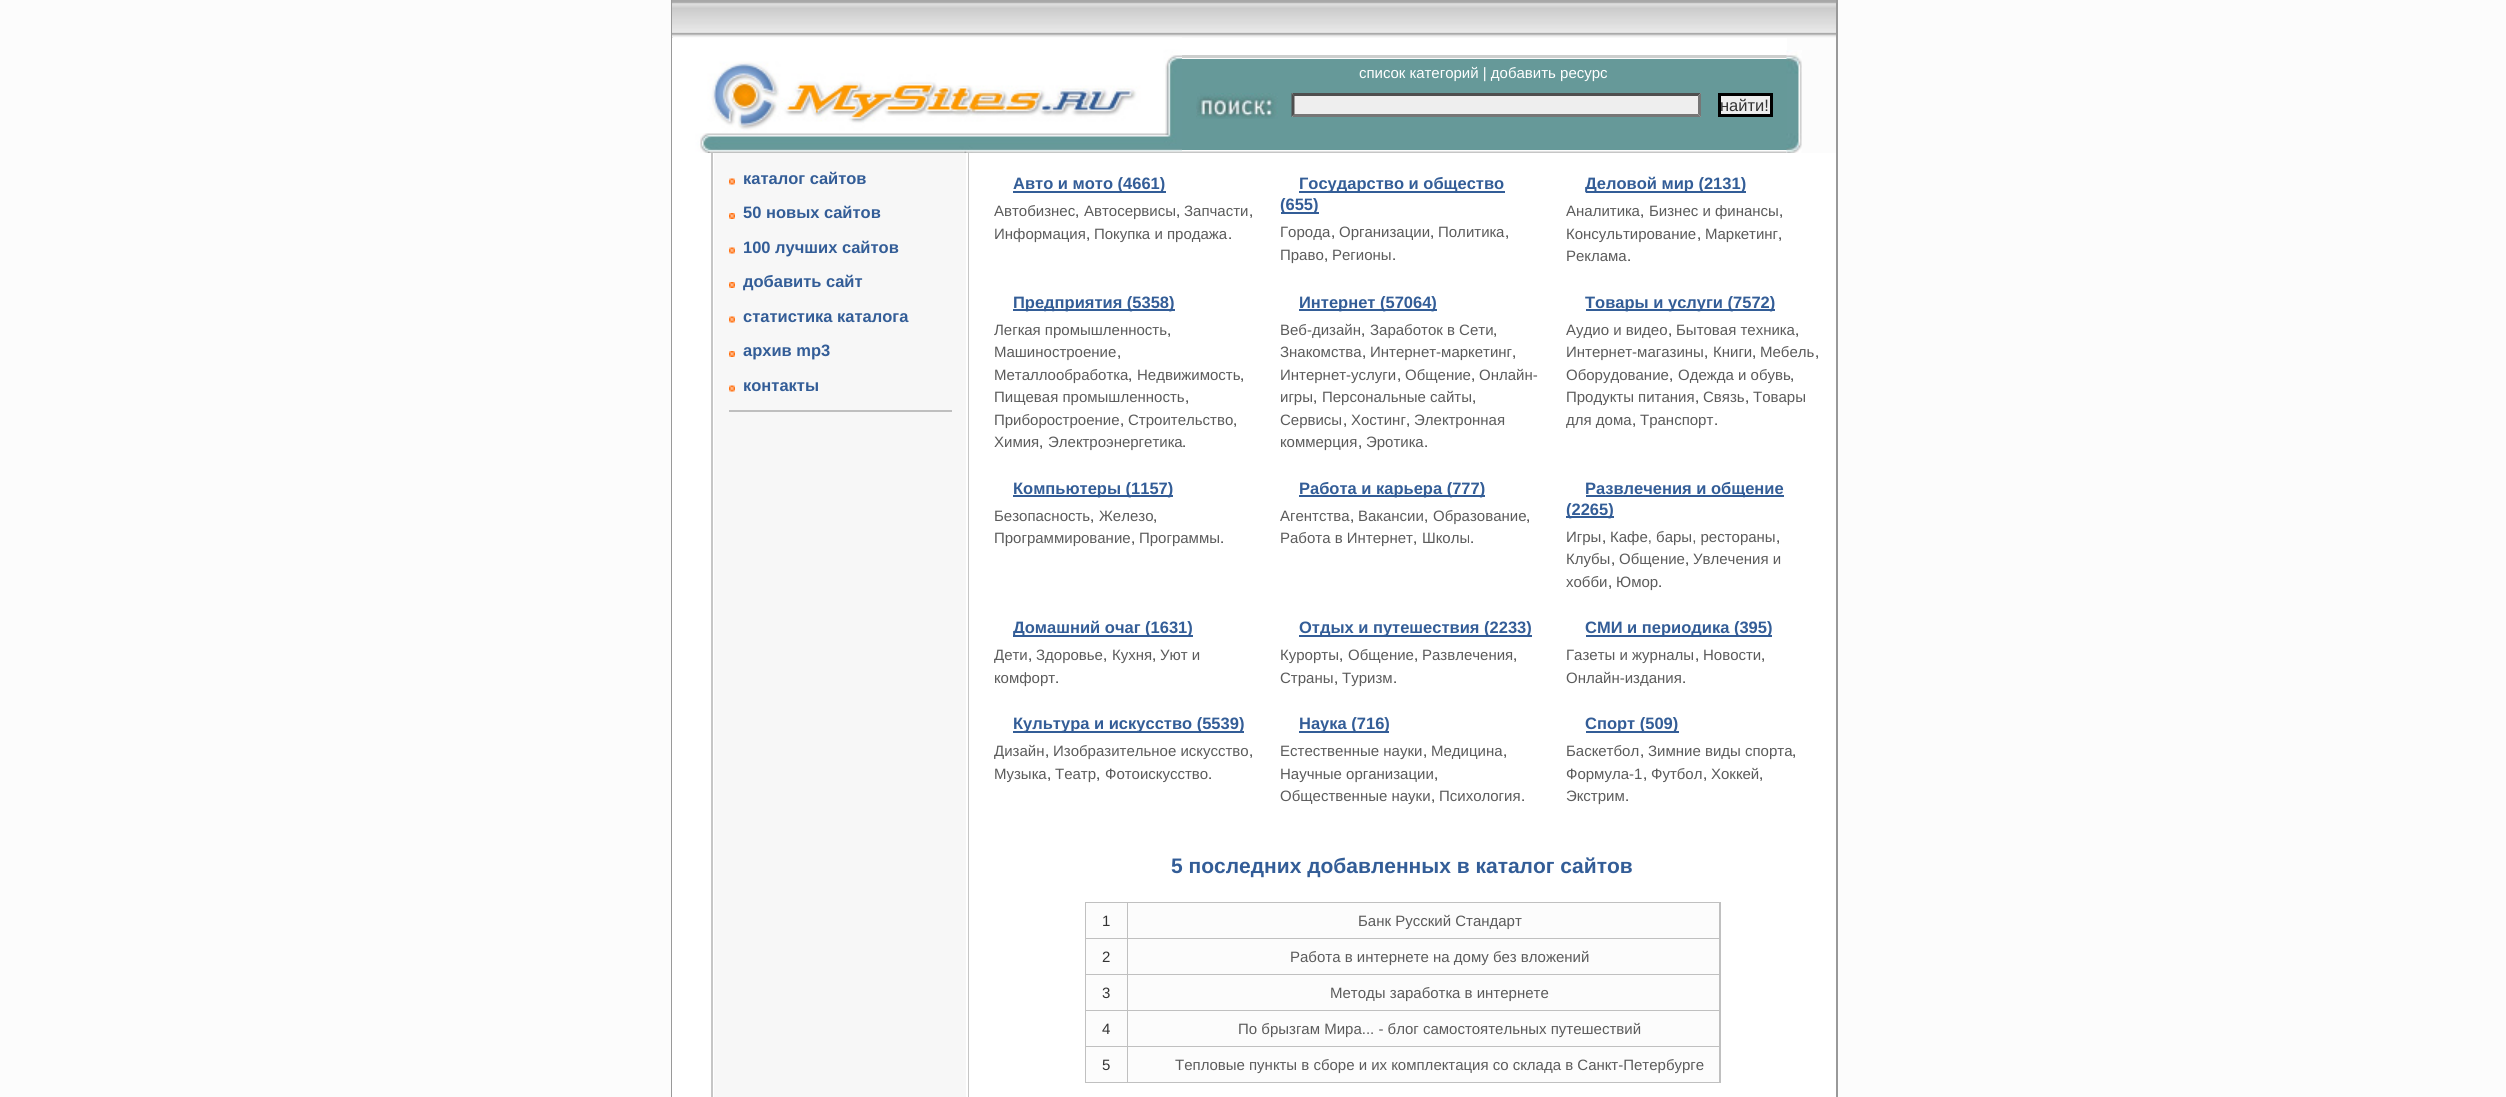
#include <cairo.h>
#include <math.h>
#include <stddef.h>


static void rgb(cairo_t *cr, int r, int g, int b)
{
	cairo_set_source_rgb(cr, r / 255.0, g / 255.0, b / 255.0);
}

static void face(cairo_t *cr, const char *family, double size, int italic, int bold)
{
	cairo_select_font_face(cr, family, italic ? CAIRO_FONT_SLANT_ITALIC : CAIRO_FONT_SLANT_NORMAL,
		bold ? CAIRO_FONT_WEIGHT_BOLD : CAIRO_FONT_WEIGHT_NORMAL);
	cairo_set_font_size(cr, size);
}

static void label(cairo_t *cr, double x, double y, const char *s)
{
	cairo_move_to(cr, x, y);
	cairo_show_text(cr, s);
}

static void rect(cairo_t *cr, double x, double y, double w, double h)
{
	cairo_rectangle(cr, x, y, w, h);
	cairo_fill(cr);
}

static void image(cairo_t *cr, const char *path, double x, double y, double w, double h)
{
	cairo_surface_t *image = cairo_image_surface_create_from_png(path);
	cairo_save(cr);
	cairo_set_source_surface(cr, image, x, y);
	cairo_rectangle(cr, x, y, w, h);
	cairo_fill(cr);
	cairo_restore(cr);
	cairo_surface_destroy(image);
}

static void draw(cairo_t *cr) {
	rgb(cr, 252, 252, 252);
	cairo_paint(cr);
	rgb(cr, 153, 153, 153);
	rect(cr, 671, 0, 2, 1097);
	image(cr, "image0.png", 672, 0, 1164, 38);
	image(cr, "image1.png", 672, 37, 510, 116);
	rgb(cr, 255, 255, 255);
	rect(cr, 1182, 38, 605, 17);
	rgb(cr, 204, 206, 205);
	rect(cr, 1182, 55, 605, 3);
	rgb(cr, 102, 153, 153);
	rect(cr, 1182, 59, 605, 91);
	face(cr, "Liberation Sans", 15, 0, 0);
	rgb(cr, 255, 255, 255);
	label(cr, 1359, 78, "список категорий | добавить ресурс");
	image(cr, "image2.png", 1196, 93, 82, 26);
	rgb(cr, 238, 238, 238);
	rect(cr, 1292, 93, 409, 24);
	rgb(cr, 79, 79, 79);
	cairo_new_path(cr);
	cairo_move_to(cr, 1292, 93);
	cairo_line_to(cr, 1701, 93);
	cairo_line_to(cr, 1698, 96);
	cairo_line_to(cr, 1294, 96);
	cairo_close_path(cr);
	cairo_fill(cr);
	rgb(cr, 118, 118, 118);
	cairo_new_path(cr);
	cairo_move_to(cr, 1701, 93);
	cairo_line_to(cr, 1701, 117);
	cairo_line_to(cr, 1698, 114);
	cairo_line_to(cr, 1698, 96);
	cairo_close_path(cr);
	cairo_fill(cr);
	cairo_new_path(cr);
	cairo_move_to(cr, 1701, 117);
	cairo_line_to(cr, 1292, 117);
	cairo_line_to(cr, 1294, 114);
	cairo_line_to(cr, 1698, 114);
	cairo_close_path(cr);
	cairo_fill(cr);
	rgb(cr, 79, 79, 79);
	cairo_new_path(cr);
	cairo_move_to(cr, 1291.5, 117);
	cairo_line_to(cr, 1291.5, 93);
	cairo_line_to(cr, 1294.5, 96);
	cairo_line_to(cr, 1294.5, 114);
	cairo_close_path(cr);
	cairo_fill(cr);
	rgb(cr, 238, 238, 238);
	cairo_rectangle(cr, 1719.5, 94.5, 52, 21);
	cairo_fill_preserve(cr);
	rgb(cr, 0, 0, 0);
	cairo_set_line_width(cr, 3);
	cairo_stroke(cr);
	face(cr, "Liberation Sans", 16.5, 0, 0);
	rgb(cr, 51, 51, 51);
	label(cr, 1720, 111, "найти!");
	image(cr, "image3.png", 1182, 151, 605, 2);
	image(cr, "image4.png", 1786, 50, 16, 103);
	rgb(cr, 255, 255, 255);
	rect(cr, 672, 153, 39, 944);
	rgb(cr, 198, 198, 198);
	rect(cr, 711, 153, 2, 944);
	rgb(cr, 255, 255, 255);
	rect(cr, 713, 153, 1, 944);
	rgb(cr, 247, 247, 247);
	rect(cr, 714, 153, 252, 944);
	image(cr, "image5.png", 729, 178, 6, 7);
	face(cr, "Liberation Sans", 16.5, 0, 1);
	rgb(cr, 51, 93, 151);
	label(cr, 743, 184, "каталог сайтов");
	image(cr, "image6.png", 729, 213, 6, 6);
	label(cr, 743, 218, "50 новых сайтов");
	image(cr, "image5.png", 729, 247, 6, 7);
	label(cr, 743, 253, "100 лучших сайтов");
	image(cr, "image6.png", 729, 282, 6, 6);
	label(cr, 743, 287, "добавить сайт");
	image(cr, "image5.png", 729, 316, 6, 7);
	label(cr, 743, 322, "статистика каталога");
	image(cr, "image6.png", 729, 351, 6, 6);
	label(cr, 743, 356, "архив mp3");
	image(cr, "image5.png", 729, 385, 6, 7);
	label(cr, 743, 391, "контакты");
	rgb(cr, 191, 191, 191);
	rect(cr, 729, 410, 223, 2);
	rgb(cr, 255, 255, 255);
	rect(cr, 966, 153, 2, 944);
	rgb(cr, 198, 198, 198);
	rect(cr, 968, 153, 1, 944);
	rgb(cr, 255, 255, 255);
	rect(cr, 969, 153, 867, 944);
	rgb(cr, 51, 93, 151);
	rect(cr, 1013, 191, 153, 2);
	label(cr, 1013, 189, "Авто и мото (4661)");
	face(cr, "Liberation Sans", 15, 0, 0);
	rgb(cr, 91, 91, 91);
	label(cr, 994, 216, "Автобизнес");
	rgb(cr, 51, 51, 51);
	label(cr, 1075, 216, ",");
	rgb(cr, 91, 91, 91);
	label(cr, 1084, 216, "Автосервисы");
	rgb(cr, 51, 51, 51);
	label(cr, 1176, 216, ",");
	rgb(cr, 91, 91, 91);
	label(cr, 1184, 216, "Запчасти");
	rgb(cr, 51, 51, 51);
	label(cr, 1249, 216, ",");
	rgb(cr, 91, 91, 91);
	label(cr, 994, 239, "Информация");
	rgb(cr, 51, 51, 51);
	label(cr, 1086, 239, ",");
	rgb(cr, 91, 91, 91);
	label(cr, 1094, 239, "Покупка и продажа");
	rgb(cr, 51, 51, 51);
	label(cr, 1228, 239, ".");
	rgb(cr, 51, 93, 151);
	rect(cr, 1299, 191, 206, 2);
	face(cr, "Liberation Sans", 16.5, 0, 1);
	label(cr, 1299, 189, "Государство и общество");
	rect(cr, 1281, 212, 38, 2);
	label(cr, 1280, 210, "(655)");
	face(cr, "Liberation Sans", 15, 0, 0);
	rgb(cr, 91, 91, 91);
	label(cr, 1280, 237, "Города");
	rgb(cr, 51, 51, 51);
	label(cr, 1331, 237, ",");
	rgb(cr, 91, 91, 91);
	label(cr, 1339, 237, "Организации");
	rgb(cr, 51, 51, 51);
	label(cr, 1430, 237, ",");
	rgb(cr, 91, 91, 91);
	label(cr, 1438, 237, "Политика");
	rgb(cr, 51, 51, 51);
	label(cr, 1505, 237, ",");
	rgb(cr, 91, 91, 91);
	label(cr, 1280, 260, "Право");
	rgb(cr, 51, 51, 51);
	label(cr, 1324, 260, ",");
	rgb(cr, 91, 91, 91);
	label(cr, 1332, 260, "Регионы");
	rgb(cr, 51, 51, 51);
	label(cr, 1392, 260, ".");
	rgb(cr, 51, 93, 151);
	rect(cr, 1586, 191, 160, 2);
	face(cr, "Liberation Sans", 16.5, 0, 1);
	label(cr, 1585, 189, "Деловой мир (2131)");
	face(cr, "Liberation Sans", 15, 0, 0);
	rgb(cr, 91, 91, 91);
	label(cr, 1566, 216, "Аналитика");
	rgb(cr, 51, 51, 51);
	label(cr, 1640, 216, ",");
	rgb(cr, 91, 91, 91);
	label(cr, 1649, 216, "Бизнес и финансы");
	rgb(cr, 51, 51, 51);
	label(cr, 1779, 216, ",");
	rgb(cr, 91, 91, 91);
	label(cr, 1566, 239, "Консультирование");
	rgb(cr, 51, 51, 51);
	label(cr, 1697, 239, ",");
	rgb(cr, 91, 91, 91);
	label(cr, 1705, 239, "Маркетинг");
	rgb(cr, 51, 51, 51);
	label(cr, 1778, 239, ",");
	rgb(cr, 91, 91, 91);
	label(cr, 1566, 261, "Реклама");
	rgb(cr, 51, 51, 51);
	label(cr, 1627, 261, ".");
	rgb(cr, 51, 93, 151);
	rect(cr, 1013, 309, 162, 2);
	face(cr, "Liberation Sans", 16.5, 0, 1);
	label(cr, 1013, 308, "Предприятия (5358)");
	face(cr, "Liberation Sans", 15, 0, 0);
	rgb(cr, 91, 91, 91);
	label(cr, 994, 335, "Легкая промышленность");
	rgb(cr, 51, 51, 51);
	label(cr, 1167, 335, ",");
	rgb(cr, 91, 91, 91);
	label(cr, 994, 357, "Машиностроение");
	rgb(cr, 51, 51, 51);
	label(cr, 1117, 357, ",");
	rgb(cr, 91, 91, 91);
	label(cr, 994, 380, "Металлообработка");
	rgb(cr, 51, 51, 51);
	label(cr, 1128, 380, ",");
	rgb(cr, 91, 91, 91);
	label(cr, 1137, 380, "Недвижимость");
	rgb(cr, 51, 51, 51);
	label(cr, 1240, 380, ",");
	rgb(cr, 91, 91, 91);
	label(cr, 994, 402, "Пищевая промышленность");
	rgb(cr, 51, 51, 51);
	label(cr, 1185, 402, ",");
	rgb(cr, 91, 91, 91);
	label(cr, 994, 425, "Приборостроение");
	rgb(cr, 51, 51, 51);
	label(cr, 1120, 425, ",");
	rgb(cr, 91, 91, 91);
	label(cr, 1128, 425, "Строительство");
	rgb(cr, 51, 51, 51);
	label(cr, 1233, 425, ",");
	rgb(cr, 91, 91, 91);
	label(cr, 994, 447, "Химия");
	rgb(cr, 51, 51, 51);
	label(cr, 1039, 447, ",");
	rgb(cr, 91, 91, 91);
	label(cr, 1048, 447, "Электроэнергетика");
	rgb(cr, 51, 51, 51);
	label(cr, 1182, 447, ".");
	rgb(cr, 51, 93, 151);
	rect(cr, 1299, 309, 138, 2);
	face(cr, "Liberation Sans", 16.5, 0, 1);
	label(cr, 1299, 308, "Интернет (57064)");
	face(cr, "Liberation Sans", 15, 0, 0);
	rgb(cr, 91, 91, 91);
	label(cr, 1280, 335, "Веб-дизайн");
	rgb(cr, 51, 51, 51);
	label(cr, 1361, 335, ",");
	rgb(cr, 91, 91, 91);
	label(cr, 1370, 335, "Заработок в Сети");
	rgb(cr, 51, 51, 51);
	label(cr, 1493, 335, ",");
	rgb(cr, 91, 91, 91);
	label(cr, 1280, 357, "Знакомства");
	rgb(cr, 51, 51, 51);
	label(cr, 1362, 357, ",");
	rgb(cr, 91, 91, 91);
	label(cr, 1370, 357, "Интернет-маркетинг");
	rgb(cr, 51, 51, 51);
	label(cr, 1512, 357, ",");
	rgb(cr, 91, 91, 91);
	label(cr, 1280, 380, "Интернет-услуги");
	rgb(cr, 51, 51, 51);
	label(cr, 1397, 380, ",");
	rgb(cr, 91, 91, 91);
	label(cr, 1405, 380, "Общение");
	rgb(cr, 51, 51, 51);
	label(cr, 1471, 380, ",");
	rgb(cr, 91, 91, 91);
	label(cr, 1479, 380, "Онлайн-");
	label(cr, 1280, 402, "игры");
	rgb(cr, 51, 51, 51);
	label(cr, 1313, 402, ",");
	rgb(cr, 91, 91, 91);
	label(cr, 1322, 402, "Персональные сайты");
	rgb(cr, 51, 51, 51);
	label(cr, 1472, 402, ",");
	rgb(cr, 91, 91, 91);
	label(cr, 1280, 425, "Сервисы");
	rgb(cr, 51, 51, 51);
	label(cr, 1343, 425, ",");
	rgb(cr, 91, 91, 91);
	label(cr, 1351, 425, "Хостинг");
	rgb(cr, 51, 51, 51);
	label(cr, 1406, 425, ",");
	rgb(cr, 91, 91, 91);
	label(cr, 1414, 425, "Электронная");
	label(cr, 1280, 447, "коммерция");
	rgb(cr, 51, 51, 51);
	label(cr, 1358, 447, ",");
	rgb(cr, 91, 91, 91);
	label(cr, 1366, 447, "Эротика");
	rgb(cr, 51, 51, 51);
	label(cr, 1424, 447, ".");
	rgb(cr, 51, 93, 151);
	rect(cr, 1586, 309, 189, 2);
	face(cr, "Liberation Sans", 16.5, 0, 1);
	label(cr, 1585, 308, "Товары и услуги (7572)");
	face(cr, "Liberation Sans", 15, 0, 0);
	rgb(cr, 91, 91, 91);
	label(cr, 1566, 335, "Аудио и видео");
	rgb(cr, 51, 51, 51);
	label(cr, 1668, 335, ",");
	rgb(cr, 91, 91, 91);
	label(cr, 1676, 335, "Бытовая техника");
	rgb(cr, 51, 51, 51);
	label(cr, 1795, 335, ",");
	rgb(cr, 91, 91, 91);
	label(cr, 1566, 357, "Интернет-магазины");
	rgb(cr, 51, 51, 51);
	label(cr, 1704, 357, ",");
	rgb(cr, 91, 91, 91);
	label(cr, 1713, 357, "Книги");
	rgb(cr, 51, 51, 51);
	label(cr, 1752, 357, ",");
	rgb(cr, 91, 91, 91);
	label(cr, 1760, 357, "Мебель");
	rgb(cr, 51, 51, 51);
	label(cr, 1815, 357, ",");
	rgb(cr, 91, 91, 91);
	label(cr, 1566, 380, "Оборудование");
	rgb(cr, 51, 51, 51);
	label(cr, 1669, 380, ",");
	rgb(cr, 91, 91, 91);
	label(cr, 1678, 380, "Одежда и обувь");
	rgb(cr, 51, 51, 51);
	label(cr, 1790, 380, ",");
	rgb(cr, 91, 91, 91);
	label(cr, 1566, 402, "Продукты питания");
	rgb(cr, 51, 51, 51);
	label(cr, 1695, 402, ",");
	rgb(cr, 91, 91, 91);
	label(cr, 1703, 402, "Связь");
	rgb(cr, 51, 51, 51);
	label(cr, 1745, 402, ",");
	rgb(cr, 91, 91, 91);
	label(cr, 1753, 402, "Товары");
	label(cr, 1566, 425, "для дома");
	rgb(cr, 51, 51, 51);
	label(cr, 1632, 425, ",");
	rgb(cr, 91, 91, 91);
	label(cr, 1640, 425, "Транспорт");
	rgb(cr, 51, 51, 51);
	label(cr, 1714, 425, ".");
	rgb(cr, 51, 93, 151);
	rect(cr, 1013, 495, 160, 2);
	face(cr, "Liberation Sans", 16.5, 0, 1);
	label(cr, 1013, 494, "Компьютеры (1157)");
	face(cr, "Liberation Sans", 15, 0, 0);
	rgb(cr, 91, 91, 91);
	label(cr, 994, 521, "Безопасность");
	rgb(cr, 51, 51, 51);
	label(cr, 1090, 521, ",");
	rgb(cr, 91, 91, 91);
	label(cr, 1099, 521, "Железо");
	rgb(cr, 51, 51, 51);
	label(cr, 1153, 521, ",");
	rgb(cr, 91, 91, 91);
	label(cr, 994, 543, "Программирование");
	rgb(cr, 51, 51, 51);
	label(cr, 1131, 543, ",");
	rgb(cr, 91, 91, 91);
	label(cr, 1139, 543, "Программы");
	rgb(cr, 51, 51, 51);
	label(cr, 1220, 543, ".");
	rgb(cr, 51, 93, 151);
	rect(cr, 1299, 495, 186, 2);
	face(cr, "Liberation Sans", 16.5, 0, 1);
	label(cr, 1299, 494, "Работа и карьера (777)");
	face(cr, "Liberation Sans", 15, 0, 0);
	rgb(cr, 91, 91, 91);
	label(cr, 1280, 521, "Агентства");
	rgb(cr, 51, 51, 51);
	label(cr, 1350, 521, ",");
	rgb(cr, 91, 91, 91);
	label(cr, 1358, 521, "Вакансии");
	rgb(cr, 51, 51, 51);
	label(cr, 1424, 521, ",");
	rgb(cr, 91, 91, 91);
	label(cr, 1433, 521, "Образование");
	rgb(cr, 51, 51, 51);
	label(cr, 1526, 521, ",");
	rgb(cr, 91, 91, 91);
	label(cr, 1280, 543, "Работа в Интернет");
	rgb(cr, 51, 51, 51);
	label(cr, 1413, 543, ",");
	rgb(cr, 91, 91, 91);
	label(cr, 1422, 543, "Школы");
	rgb(cr, 51, 51, 51);
	label(cr, 1470, 543, ".");
	rgb(cr, 51, 93, 151);
	rect(cr, 1586, 495, 198, 2);
	face(cr, "Liberation Sans", 16.5, 0, 1);
	label(cr, 1585, 494, "Развлечения и общение");
	rect(cr, 1566, 516, 48, 2);
	label(cr, 1566, 515, "(2265)");
	face(cr, "Liberation Sans", 15, 0, 0);
	rgb(cr, 91, 91, 91);
	label(cr, 1566, 542, "Игры");
	rgb(cr, 51, 51, 51);
	label(cr, 1602, 542, ",");
	rgb(cr, 91, 91, 91);
	label(cr, 1610, 542, "Кафе, бары, рестораны");
	rgb(cr, 51, 51, 51);
	label(cr, 1776, 542, ",");
	rgb(cr, 91, 91, 91);
	label(cr, 1566, 564, "Клубы");
	rgb(cr, 51, 51, 51);
	label(cr, 1611, 564, ",");
	rgb(cr, 91, 91, 91);
	label(cr, 1619, 564, "Общение");
	rgb(cr, 51, 51, 51);
	label(cr, 1685, 564, ",");
	rgb(cr, 91, 91, 91);
	label(cr, 1693, 564, "Увлечения и");
	label(cr, 1566, 587, "хобби");
	rgb(cr, 51, 51, 51);
	label(cr, 1608, 587, ",");
	rgb(cr, 91, 91, 91);
	label(cr, 1616, 587, "Юмор");
	rgb(cr, 51, 51, 51);
	label(cr, 1658, 587, ".");
	rgb(cr, 51, 93, 151);
	rect(cr, 1013, 635, 180, 2);
	face(cr, "Liberation Sans", 16.5, 0, 1);
	label(cr, 1013, 633, "Домашний очаг (1631)");
	face(cr, "Liberation Sans", 15, 0, 0);
	rgb(cr, 91, 91, 91);
	label(cr, 994, 660, "Дети");
	rgb(cr, 51, 51, 51);
	label(cr, 1028, 660, ",");
	rgb(cr, 91, 91, 91);
	label(cr, 1036, 660, "Здоровье");
	rgb(cr, 51, 51, 51);
	label(cr, 1103, 660, ",");
	rgb(cr, 91, 91, 91);
	label(cr, 1112, 660, "Кухня");
	rgb(cr, 51, 51, 51);
	label(cr, 1152, 660, ",");
	rgb(cr, 91, 91, 91);
	label(cr, 1160, 660, "Уют и");
	label(cr, 994, 683, "комфорт");
	rgb(cr, 51, 51, 51);
	label(cr, 1055, 683, ".");
	rgb(cr, 51, 93, 151);
	rect(cr, 1299, 635, 233, 2);
	face(cr, "Liberation Sans", 16.5, 0, 1);
	label(cr, 1299, 633, "Отдых и путешествия (2233)");
	face(cr, "Liberation Sans", 15, 0, 0);
	rgb(cr, 91, 91, 91);
	label(cr, 1280, 660, "Курорты");
	rgb(cr, 51, 51, 51);
	label(cr, 1339, 660, ",");
	rgb(cr, 91, 91, 91);
	label(cr, 1348, 660, "Общение");
	rgb(cr, 51, 51, 51);
	label(cr, 1414, 660, ",");
	rgb(cr, 91, 91, 91);
	label(cr, 1422, 660, "Развлечения");
	rgb(cr, 51, 51, 51);
	label(cr, 1513, 660, ",");
	rgb(cr, 91, 91, 91);
	label(cr, 1280, 683, "Страны");
	rgb(cr, 51, 51, 51);
	label(cr, 1334, 683, ",");
	rgb(cr, 91, 91, 91);
	label(cr, 1342, 683, "Туризм");
	rgb(cr, 51, 51, 51);
	label(cr, 1393, 683, ".");
	rgb(cr, 51, 93, 151);
	rect(cr, 1586, 635, 186, 2);
	face(cr, "Liberation Sans", 16.5, 0, 1);
	label(cr, 1585, 633, "СМИ и периодика (395)");
	face(cr, "Liberation Sans", 15, 0, 0);
	rgb(cr, 91, 91, 91);
	label(cr, 1566, 660, "Газеты и журналы");
	rgb(cr, 51, 51, 51);
	label(cr, 1695, 660, ",");
	rgb(cr, 91, 91, 91);
	label(cr, 1703, 660, "Новости");
	rgb(cr, 51, 51, 51);
	label(cr, 1761, 660, ",");
	rgb(cr, 91, 91, 91);
	label(cr, 1566, 683, "Онлайн-издания");
	rgb(cr, 51, 51, 51);
	label(cr, 1682, 683, ".");
	rgb(cr, 51, 93, 151);
	rect(cr, 1013, 731, 231, 2);
	face(cr, "Liberation Sans", 16.5, 0, 1);
	label(cr, 1013, 729, "Культура и искусство (5539)");
	face(cr, "Liberation Sans", 15, 0, 0);
	rgb(cr, 91, 91, 91);
	label(cr, 994, 756, "Дизайн");
	rgb(cr, 51, 51, 51);
	label(cr, 1045, 756, ",");
	rgb(cr, 91, 91, 91);
	label(cr, 1053, 756, "Изобразительное искусство");
	rgb(cr, 51, 51, 51);
	label(cr, 1249, 756, ",");
	rgb(cr, 91, 91, 91);
	label(cr, 994, 779, "Музыка");
	rgb(cr, 51, 51, 51);
	label(cr, 1047, 779, ",");
	rgb(cr, 91, 91, 91);
	label(cr, 1055, 779, "Театр");
	rgb(cr, 51, 51, 51);
	label(cr, 1096, 779, ",");
	rgb(cr, 91, 91, 91);
	label(cr, 1105, 779, "Фотоискусство");
	rgb(cr, 51, 51, 51);
	label(cr, 1208, 779, ".");
	rgb(cr, 51, 93, 151);
	rect(cr, 1299, 731, 90, 2);
	face(cr, "Liberation Sans", 16.5, 0, 1);
	label(cr, 1299, 729, "Наука (716)");
	face(cr, "Liberation Sans", 15, 0, 0);
	rgb(cr, 91, 91, 91);
	label(cr, 1280, 756, "Естественные науки");
	rgb(cr, 51, 51, 51);
	label(cr, 1423, 756, ",");
	rgb(cr, 91, 91, 91);
	label(cr, 1431, 756, "Медицина");
	rgb(cr, 51, 51, 51);
	label(cr, 1503, 756, ",");
	rgb(cr, 91, 91, 91);
	label(cr, 1280, 779, "Научные организации");
	rgb(cr, 51, 51, 51);
	label(cr, 1434, 779, ",");
	rgb(cr, 91, 91, 91);
	label(cr, 1280, 801, "Общественные науки");
	rgb(cr, 51, 51, 51);
	label(cr, 1431, 801, ",");
	rgb(cr, 91, 91, 91);
	label(cr, 1439, 801, "Психология");
	rgb(cr, 51, 51, 51);
	label(cr, 1521, 801, ".");
	rgb(cr, 51, 93, 151);
	rect(cr, 1586, 731, 93, 2);
	face(cr, "Liberation Sans", 16.5, 0, 1);
	label(cr, 1585, 729, "Спорт (509)");
	face(cr, "Liberation Sans", 15, 0, 0);
	rgb(cr, 91, 91, 91);
	label(cr, 1566, 756, "Баскетбол");
	rgb(cr, 51, 51, 51);
	label(cr, 1640, 756, ",");
	rgb(cr, 91, 91, 91);
	label(cr, 1648, 756, "Зимние виды спорта");
	rgb(cr, 51, 51, 51);
	label(cr, 1792, 756, ",");
	rgb(cr, 91, 91, 91);
	label(cr, 1566, 779, "Формула-1");
	rgb(cr, 51, 51, 51);
	label(cr, 1643, 779, ",");
	rgb(cr, 91, 91, 91);
	label(cr, 1651, 779, "Футбол");
	rgb(cr, 51, 51, 51);
	label(cr, 1703, 779, ",");
	rgb(cr, 91, 91, 91);
	label(cr, 1711, 779, "Хоккей");
	rgb(cr, 51, 51, 51);
	label(cr, 1759, 779, ",");
	rgb(cr, 91, 91, 91);
	label(cr, 1566, 801, "Экстрим");
	rgb(cr, 51, 51, 51);
	label(cr, 1625, 801, ".");
	face(cr, "Liberation Sans", 21, 0, 1);
	rgb(cr, 51, 93, 151);
	label(cr, 1171, 873, "5 последних добавленных в каталог сайтов");
	rgb(cr, 192, 192, 192);
	rect(cr, 1085, 902, 636, 181);
	rgb(cr, 252, 252, 252);
	rect(cr, 1086, 903, 41, 35);
	face(cr, "Liberation Sans", 15, 0, 0);
	rgb(cr, 51, 51, 51);
	label(cr, 1102, 926, "1");
	rgb(cr, 252, 252, 252);
	rect(cr, 1128, 903, 591, 35);
	rgb(cr, 91, 91, 91);
	label(cr, 1358, 926, "Банк Русский Стандарт");
	rgb(cr, 252, 252, 252);
	rect(cr, 1086, 939, 41, 35);
	rgb(cr, 51, 51, 51);
	label(cr, 1102, 962, "2");
	rgb(cr, 252, 252, 252);
	rect(cr, 1128, 939, 591, 35);
	rgb(cr, 91, 91, 91);
	label(cr, 1290, 962, "Работа в интернете на дому без вложений");
	rgb(cr, 252, 252, 252);
	rect(cr, 1086, 975, 41, 35);
	rgb(cr, 51, 51, 51);
	label(cr, 1102, 998, "3");
	rgb(cr, 252, 252, 252);
	rect(cr, 1128, 975, 591, 35);
	rgb(cr, 91, 91, 91);
	label(cr, 1330, 998, "Методы заработка в интернете");
	rgb(cr, 252, 252, 252);
	rect(cr, 1086, 1011, 41, 35);
	rgb(cr, 51, 51, 51);
	label(cr, 1102, 1034, "4");
	rgb(cr, 252, 252, 252);
	rect(cr, 1128, 1011, 591, 35);
	rgb(cr, 91, 91, 91);
	label(cr, 1238, 1034, "По брызгам Мира... - блог самостоятельных путешествий");
	rgb(cr, 252, 252, 252);
	rect(cr, 1086, 1047, 41, 35);
	rgb(cr, 51, 51, 51);
	label(cr, 1102, 1070, "5");
	rgb(cr, 252, 252, 252);
	rect(cr, 1128, 1047, 591, 35);
	rgb(cr, 91, 91, 91);
	label(cr, 1175, 1070, "Тепловые пункты в сборе и их комплектация со склада в Санкт-Петербурге");
	rgb(cr, 153, 153, 153);
	rect(cr, 1836, 0, 2, 1097);
}

int main(void) {
	cairo_surface_t *surface = cairo_image_surface_create(CAIRO_FORMAT_RGB24, 2506, 1097);
	cairo_t *cr = cairo_create(surface);
	cairo_font_options_t *options = cairo_font_options_create();
	cairo_font_options_set_hint_metrics(options, CAIRO_HINT_METRICS_OFF);
	cairo_font_options_set_hint_style(options, CAIRO_HINT_STYLE_NONE);
	cairo_set_font_options(cr, options);
	cairo_set_miter_limit(cr, 4);
	draw(cr);
	cairo_surface_write_to_png(surface, "render.png");
	cairo_font_options_destroy(options);
	cairo_destroy(cr);
	cairo_surface_destroy(surface);
	return 0;
}
